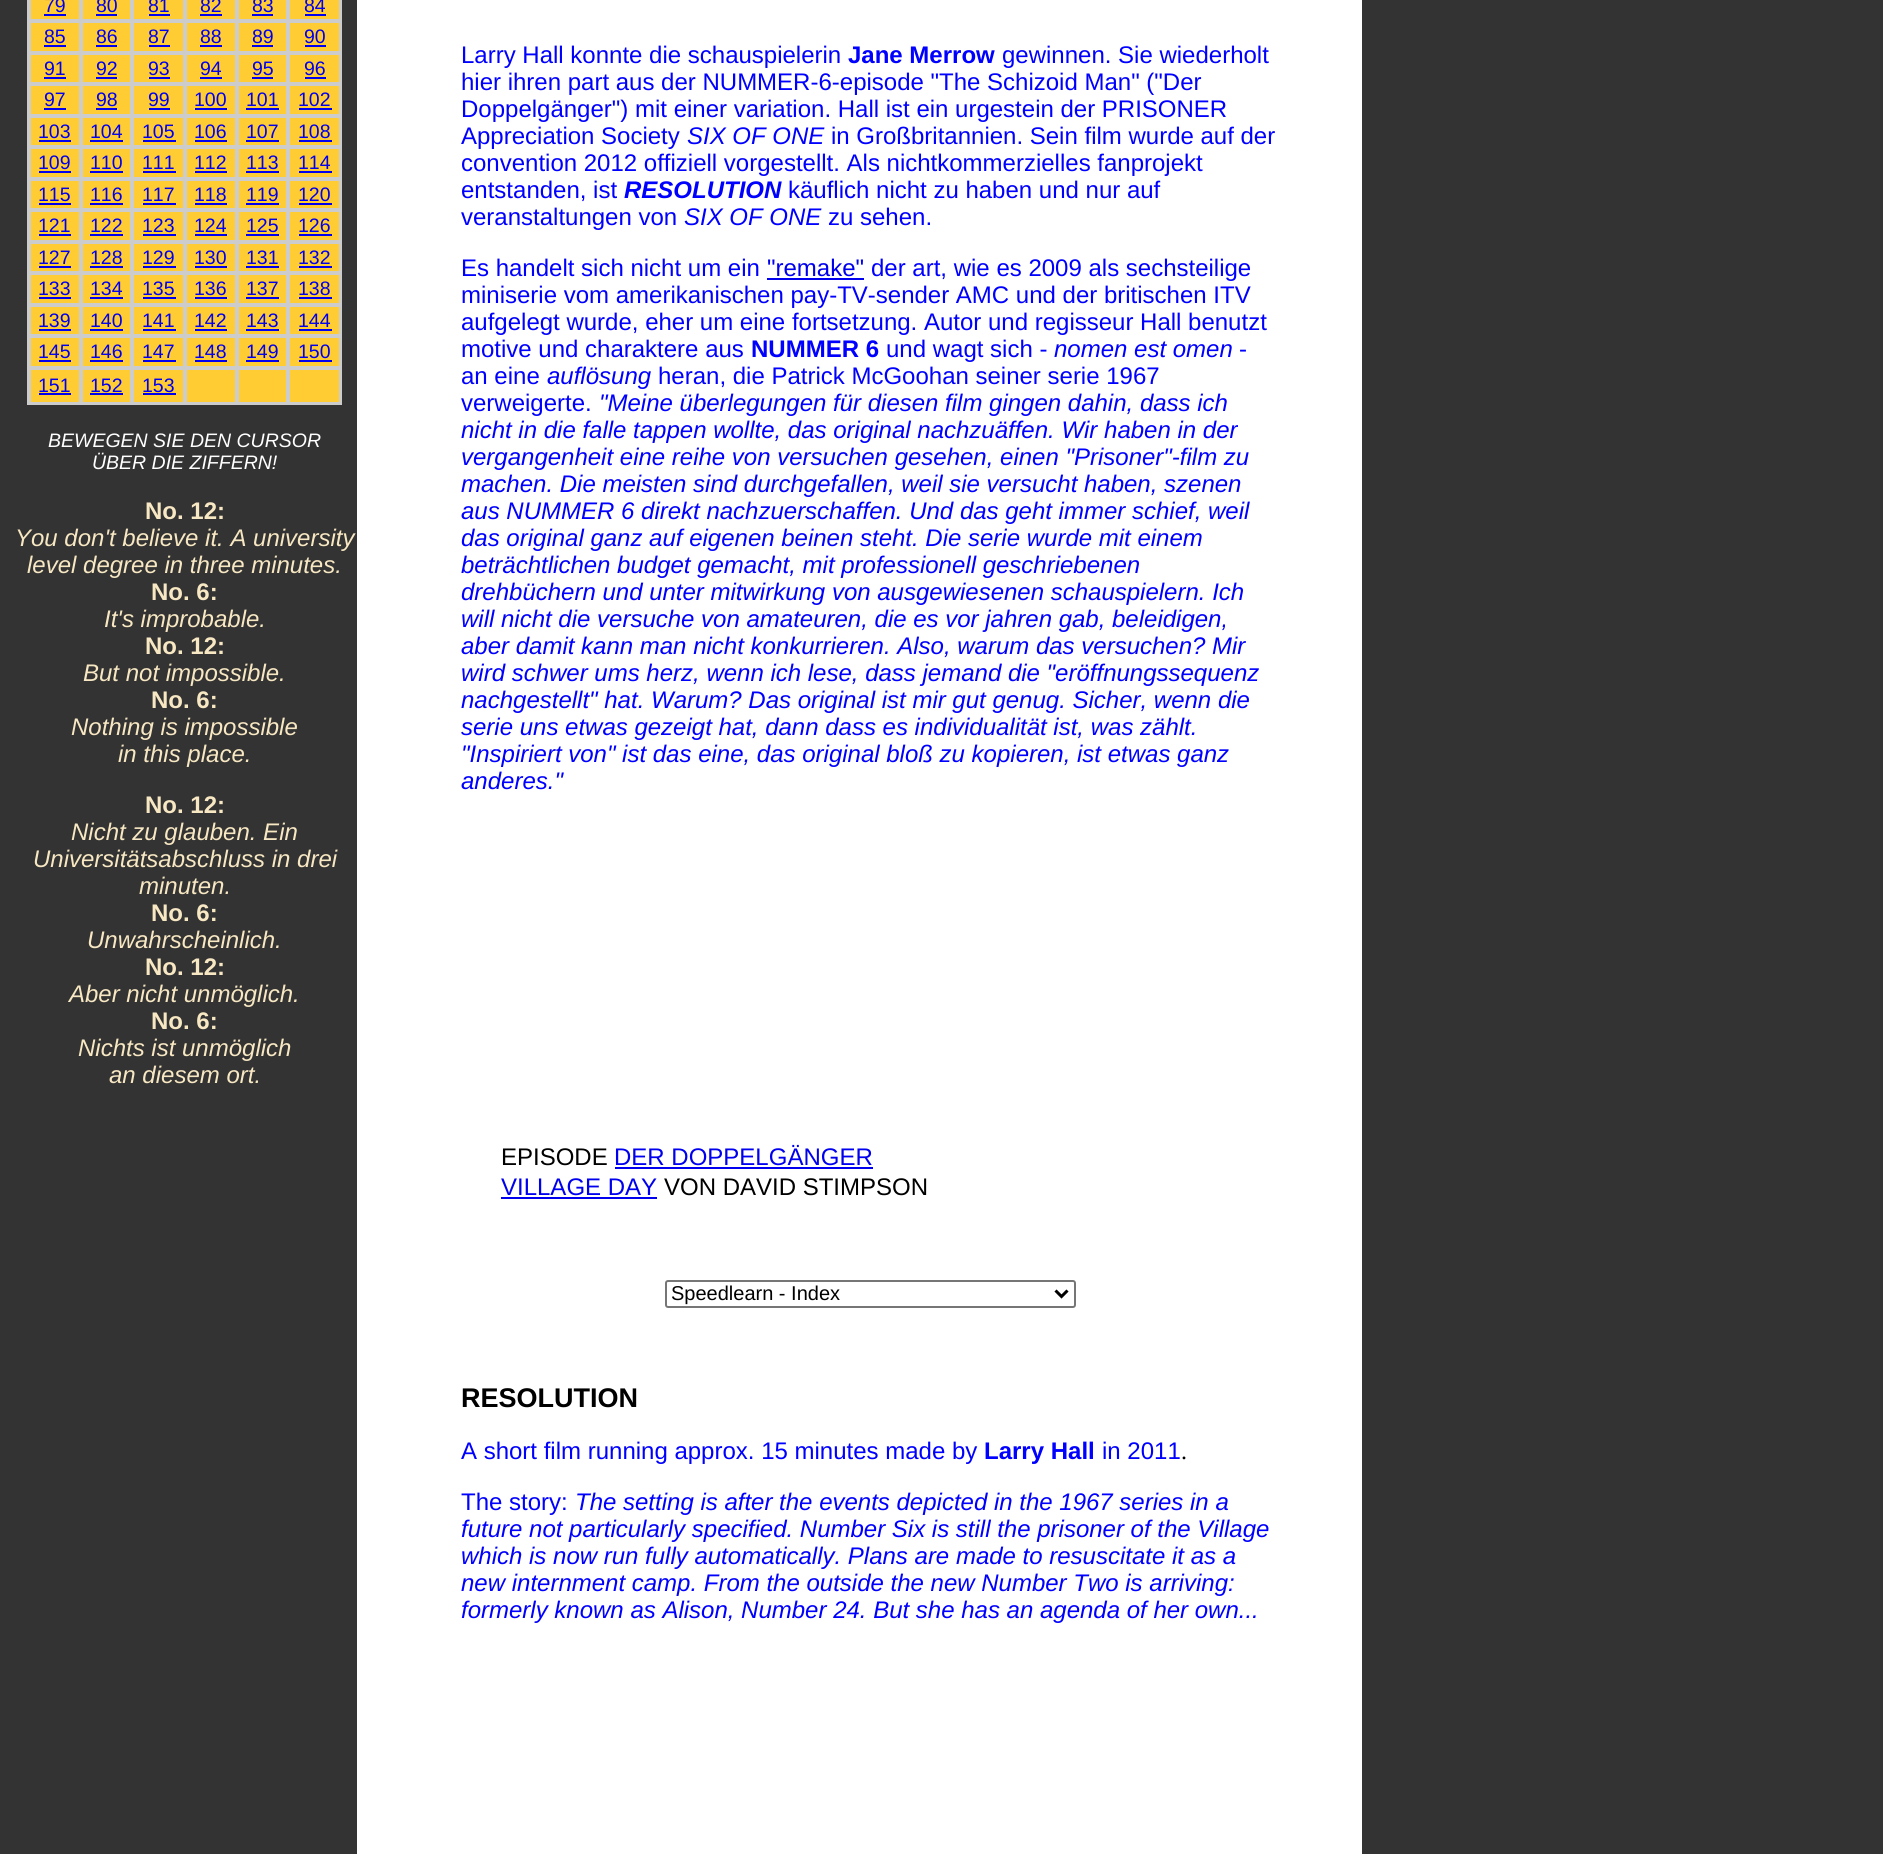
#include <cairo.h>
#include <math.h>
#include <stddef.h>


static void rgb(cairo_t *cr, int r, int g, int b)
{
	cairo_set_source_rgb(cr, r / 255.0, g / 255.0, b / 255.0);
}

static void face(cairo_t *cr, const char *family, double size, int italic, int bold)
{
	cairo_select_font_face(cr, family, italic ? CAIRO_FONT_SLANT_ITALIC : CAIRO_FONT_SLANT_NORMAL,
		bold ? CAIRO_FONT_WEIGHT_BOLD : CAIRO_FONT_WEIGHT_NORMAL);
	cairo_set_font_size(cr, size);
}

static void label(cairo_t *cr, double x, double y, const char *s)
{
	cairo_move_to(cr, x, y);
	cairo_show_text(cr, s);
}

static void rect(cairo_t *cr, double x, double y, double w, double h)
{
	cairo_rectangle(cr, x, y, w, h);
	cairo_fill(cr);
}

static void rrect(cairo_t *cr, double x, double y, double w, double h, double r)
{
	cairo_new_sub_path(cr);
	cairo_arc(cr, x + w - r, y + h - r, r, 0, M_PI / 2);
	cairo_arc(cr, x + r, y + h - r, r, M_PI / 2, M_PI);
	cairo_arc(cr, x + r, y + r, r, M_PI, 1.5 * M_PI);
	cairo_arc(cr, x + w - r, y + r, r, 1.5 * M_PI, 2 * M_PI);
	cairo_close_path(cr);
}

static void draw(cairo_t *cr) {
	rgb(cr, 51, 51, 51);
	cairo_paint(cr);
	rgb(cr, 255, 255, 255);
	rect(cr, 357, 0, 1005, 1854);
	rgb(cr, 255, 204, 51);
	rect(cr, 31, 0, 308, 402);
	cairo_rectangle(cr, 28, -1, 313, 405);
	rgb(cr, 204, 204, 204);
	cairo_stroke(cr);
	cairo_rectangle(cr, 30, -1, 50, 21);
	cairo_stroke(cr);
	face(cr, "Liberation Sans", 19.5, 0, 0);
	rgb(cr, 0, 0, 238);
	label(cr, 44, 12, "79");
	rect(cr, 44, 14, 22, 2);
	cairo_rectangle(cr, 82, -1, 49, 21);
	rgb(cr, 204, 204, 204);
	cairo_stroke(cr);
	rgb(cr, 0, 0, 238);
	label(cr, 96, 12, "80");
	rect(cr, 96, 14, 21, 2);
	cairo_rectangle(cr, 133, -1, 51, 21);
	rgb(cr, 204, 204, 204);
	cairo_stroke(cr);
	rgb(cr, 0, 0, 238);
	label(cr, 148, 12, "81");
	rect(cr, 149, 14, 21, 2);
	cairo_rectangle(cr, 186, -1, 50, 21);
	rgb(cr, 204, 204, 204);
	cairo_stroke(cr);
	rgb(cr, 0, 0, 238);
	label(cr, 200, 12, "82");
	rect(cr, 200, 14, 22, 2);
	cairo_rectangle(cr, 238, -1, 49, 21);
	rgb(cr, 204, 204, 204);
	cairo_stroke(cr);
	rgb(cr, 0, 0, 238);
	label(cr, 252, 12, "83");
	rect(cr, 252, 14, 21, 2);
	cairo_rectangle(cr, 289, -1, 51, 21);
	rgb(cr, 204, 204, 204);
	cairo_stroke(cr);
	rgb(cr, 0, 0, 238);
	label(cr, 304, 12, "84");
	rect(cr, 305, 14, 21, 2);
	cairo_rectangle(cr, 30, 22, 50, 30);
	rgb(cr, 204, 204, 204);
	cairo_stroke(cr);
	rgb(cr, 0, 0, 238);
	label(cr, 44, 43, "85");
	rect(cr, 44, 45, 22, 2);
	cairo_rectangle(cr, 82, 22, 49, 30);
	rgb(cr, 204, 204, 204);
	cairo_stroke(cr);
	rgb(cr, 0, 0, 238);
	label(cr, 96, 43, "86");
	rect(cr, 96, 45, 21, 2);
	cairo_rectangle(cr, 133, 22, 51, 30);
	rgb(cr, 204, 204, 204);
	cairo_stroke(cr);
	rgb(cr, 0, 0, 238);
	label(cr, 148, 43, "87");
	rect(cr, 149, 45, 21, 2);
	cairo_rectangle(cr, 186, 22, 50, 30);
	rgb(cr, 204, 204, 204);
	cairo_stroke(cr);
	rgb(cr, 0, 0, 238);
	label(cr, 200, 43, "88");
	rect(cr, 200, 45, 22, 2);
	cairo_rectangle(cr, 238, 22, 49, 30);
	rgb(cr, 204, 204, 204);
	cairo_stroke(cr);
	rgb(cr, 0, 0, 238);
	label(cr, 252, 43, "89");
	rect(cr, 252, 45, 21, 2);
	cairo_rectangle(cr, 289, 22, 51, 30);
	rgb(cr, 204, 204, 204);
	cairo_stroke(cr);
	rgb(cr, 0, 0, 238);
	label(cr, 304, 43, "90");
	rect(cr, 305, 45, 21, 2);
	cairo_rectangle(cr, 30, 54, 50, 29);
	rgb(cr, 204, 204, 204);
	cairo_stroke(cr);
	rgb(cr, 0, 0, 238);
	label(cr, 44, 75, "91");
	rect(cr, 44, 77, 22, 2);
	cairo_rectangle(cr, 82, 54, 49, 29);
	rgb(cr, 204, 204, 204);
	cairo_stroke(cr);
	rgb(cr, 0, 0, 238);
	label(cr, 96, 75, "92");
	rect(cr, 96, 77, 21, 2);
	cairo_rectangle(cr, 133, 54, 51, 29);
	rgb(cr, 204, 204, 204);
	cairo_stroke(cr);
	rgb(cr, 0, 0, 238);
	label(cr, 148, 75, "93");
	rect(cr, 149, 77, 21, 2);
	cairo_rectangle(cr, 186, 54, 50, 29);
	rgb(cr, 204, 204, 204);
	cairo_stroke(cr);
	rgb(cr, 0, 0, 238);
	label(cr, 200, 75, "94");
	rect(cr, 200, 77, 22, 2);
	cairo_rectangle(cr, 238, 54, 49, 29);
	rgb(cr, 204, 204, 204);
	cairo_stroke(cr);
	rgb(cr, 0, 0, 238);
	label(cr, 252, 75, "95");
	rect(cr, 252, 77, 21, 2);
	cairo_rectangle(cr, 289, 54, 51, 29);
	rgb(cr, 204, 204, 204);
	cairo_stroke(cr);
	rgb(cr, 0, 0, 238);
	label(cr, 304, 75, "96");
	rect(cr, 305, 77, 21, 2);
	cairo_rectangle(cr, 30, 85, 50, 30);
	rgb(cr, 204, 204, 204);
	cairo_stroke(cr);
	rgb(cr, 0, 0, 238);
	label(cr, 44, 106, "97");
	rect(cr, 44, 108, 22, 2);
	cairo_rectangle(cr, 82, 85, 49, 30);
	rgb(cr, 204, 204, 204);
	cairo_stroke(cr);
	rgb(cr, 0, 0, 238);
	label(cr, 96, 106, "98");
	rect(cr, 96, 108, 21, 2);
	cairo_rectangle(cr, 133, 85, 51, 30);
	rgb(cr, 204, 204, 204);
	cairo_stroke(cr);
	rgb(cr, 0, 0, 238);
	label(cr, 148, 106, "99");
	rect(cr, 149, 108, 21, 2);
	cairo_rectangle(cr, 186, 85, 50, 30);
	rgb(cr, 204, 204, 204);
	cairo_stroke(cr);
	rgb(cr, 0, 0, 238);
	label(cr, 194, 106, "100");
	rect(cr, 195, 108, 32, 2);
	cairo_rectangle(cr, 238, 85, 49, 30);
	rgb(cr, 204, 204, 204);
	cairo_stroke(cr);
	rgb(cr, 0, 0, 238);
	label(cr, 246, 106, "101");
	rect(cr, 246, 108, 33, 2);
	cairo_rectangle(cr, 289, 85, 51, 30);
	rgb(cr, 204, 204, 204);
	cairo_stroke(cr);
	rgb(cr, 0, 0, 238);
	label(cr, 298, 106, "102");
	rect(cr, 299, 108, 33, 2);
	cairo_rectangle(cr, 30, 117, 50, 29);
	rgb(cr, 204, 204, 204);
	cairo_stroke(cr);
	rgb(cr, 0, 0, 238);
	label(cr, 38, 138, "103");
	rect(cr, 39, 140, 32, 2);
	cairo_rectangle(cr, 82, 117, 49, 29);
	rgb(cr, 204, 204, 204);
	cairo_stroke(cr);
	rgb(cr, 0, 0, 238);
	label(cr, 90, 138, "104");
	rect(cr, 90, 140, 33, 2);
	cairo_rectangle(cr, 133, 117, 51, 29);
	rgb(cr, 204, 204, 204);
	cairo_stroke(cr);
	rgb(cr, 0, 0, 238);
	label(cr, 142, 138, "105");
	rect(cr, 143, 140, 33, 2);
	cairo_rectangle(cr, 186, 117, 50, 29);
	rgb(cr, 204, 204, 204);
	cairo_stroke(cr);
	rgb(cr, 0, 0, 238);
	label(cr, 194, 138, "106");
	rect(cr, 195, 140, 32, 2);
	cairo_rectangle(cr, 238, 117, 49, 29);
	rgb(cr, 204, 204, 204);
	cairo_stroke(cr);
	rgb(cr, 0, 0, 238);
	label(cr, 246, 138, "107");
	rect(cr, 246, 140, 33, 2);
	cairo_rectangle(cr, 289, 117, 51, 29);
	rgb(cr, 204, 204, 204);
	cairo_stroke(cr);
	rgb(cr, 0, 0, 238);
	label(cr, 298, 138, "108");
	rect(cr, 299, 140, 33, 2);
	cairo_rectangle(cr, 30, 148, 50, 30);
	rgb(cr, 204, 204, 204);
	cairo_stroke(cr);
	rgb(cr, 0, 0, 238);
	label(cr, 38, 169, "109");
	rect(cr, 39, 171, 32, 2);
	cairo_rectangle(cr, 82, 148, 49, 30);
	rgb(cr, 204, 204, 204);
	cairo_stroke(cr);
	rgb(cr, 0, 0, 238);
	label(cr, 90, 169, "110");
	rect(cr, 90, 171, 33, 2);
	cairo_rectangle(cr, 133, 148, 51, 30);
	rgb(cr, 204, 204, 204);
	cairo_stroke(cr);
	rgb(cr, 0, 0, 238);
	label(cr, 142, 169, "111");
	rect(cr, 143, 171, 33, 2);
	cairo_rectangle(cr, 186, 148, 50, 30);
	rgb(cr, 204, 204, 204);
	cairo_stroke(cr);
	rgb(cr, 0, 0, 238);
	label(cr, 194, 169, "112");
	rect(cr, 195, 171, 32, 2);
	cairo_rectangle(cr, 238, 148, 49, 30);
	rgb(cr, 204, 204, 204);
	cairo_stroke(cr);
	rgb(cr, 0, 0, 238);
	label(cr, 246, 169, "113");
	rect(cr, 246, 171, 33, 2);
	cairo_rectangle(cr, 289, 148, 51, 30);
	rgb(cr, 204, 204, 204);
	cairo_stroke(cr);
	rgb(cr, 0, 0, 238);
	label(cr, 298, 169, "114");
	rect(cr, 299, 171, 33, 2);
	cairo_rectangle(cr, 30, 180, 50, 29);
	rgb(cr, 204, 204, 204);
	cairo_stroke(cr);
	rgb(cr, 0, 0, 238);
	label(cr, 38, 201, "115");
	rect(cr, 39, 203, 32, 2);
	cairo_rectangle(cr, 82, 180, 49, 29);
	rgb(cr, 204, 204, 204);
	cairo_stroke(cr);
	rgb(cr, 0, 0, 238);
	label(cr, 90, 201, "116");
	rect(cr, 90, 203, 33, 2);
	cairo_rectangle(cr, 133, 180, 51, 29);
	rgb(cr, 204, 204, 204);
	cairo_stroke(cr);
	rgb(cr, 0, 0, 238);
	label(cr, 142, 201, "117");
	rect(cr, 143, 203, 33, 2);
	cairo_rectangle(cr, 186, 180, 50, 29);
	rgb(cr, 204, 204, 204);
	cairo_stroke(cr);
	rgb(cr, 0, 0, 238);
	label(cr, 194, 201, "118");
	rect(cr, 195, 203, 32, 2);
	cairo_rectangle(cr, 238, 180, 49, 29);
	rgb(cr, 204, 204, 204);
	cairo_stroke(cr);
	rgb(cr, 0, 0, 238);
	label(cr, 246, 201, "119");
	rect(cr, 246, 203, 33, 2);
	cairo_rectangle(cr, 289, 180, 51, 29);
	rgb(cr, 204, 204, 204);
	cairo_stroke(cr);
	rgb(cr, 0, 0, 238);
	label(cr, 298, 201, "120");
	rect(cr, 299, 203, 33, 2);
	cairo_rectangle(cr, 30, 211, 50, 30);
	rgb(cr, 204, 204, 204);
	cairo_stroke(cr);
	rgb(cr, 0, 0, 238);
	label(cr, 38, 232, "121");
	rect(cr, 39, 234, 32, 2);
	cairo_rectangle(cr, 82, 211, 49, 30);
	rgb(cr, 204, 204, 204);
	cairo_stroke(cr);
	rgb(cr, 0, 0, 238);
	label(cr, 90, 232, "122");
	rect(cr, 90, 234, 33, 2);
	cairo_rectangle(cr, 133, 211, 51, 30);
	rgb(cr, 204, 204, 204);
	cairo_stroke(cr);
	rgb(cr, 0, 0, 238);
	label(cr, 142, 232, "123");
	rect(cr, 143, 234, 33, 2);
	cairo_rectangle(cr, 186, 211, 50, 30);
	rgb(cr, 204, 204, 204);
	cairo_stroke(cr);
	rgb(cr, 0, 0, 238);
	label(cr, 194, 232, "124");
	rect(cr, 195, 234, 32, 2);
	cairo_rectangle(cr, 238, 211, 49, 30);
	rgb(cr, 204, 204, 204);
	cairo_stroke(cr);
	rgb(cr, 0, 0, 238);
	label(cr, 246, 232, "125");
	rect(cr, 246, 234, 33, 2);
	cairo_rectangle(cr, 289, 211, 51, 30);
	rgb(cr, 204, 204, 204);
	cairo_stroke(cr);
	rgb(cr, 0, 0, 238);
	label(cr, 298, 232, "126");
	rect(cr, 299, 234, 33, 2);
	cairo_rectangle(cr, 30, 243, 50, 29);
	rgb(cr, 204, 204, 204);
	cairo_stroke(cr);
	rgb(cr, 0, 0, 238);
	label(cr, 38, 264, "127");
	rect(cr, 39, 266, 32, 2);
	cairo_rectangle(cr, 82, 243, 49, 29);
	rgb(cr, 204, 204, 204);
	cairo_stroke(cr);
	rgb(cr, 0, 0, 238);
	label(cr, 90, 264, "128");
	rect(cr, 90, 266, 33, 2);
	cairo_rectangle(cr, 133, 243, 51, 29);
	rgb(cr, 204, 204, 204);
	cairo_stroke(cr);
	rgb(cr, 0, 0, 238);
	label(cr, 142, 264, "129");
	rect(cr, 143, 266, 33, 2);
	cairo_rectangle(cr, 186, 243, 50, 29);
	rgb(cr, 204, 204, 204);
	cairo_stroke(cr);
	rgb(cr, 0, 0, 238);
	label(cr, 194, 264, "130");
	rect(cr, 195, 266, 32, 2);
	cairo_rectangle(cr, 238, 243, 49, 29);
	rgb(cr, 204, 204, 204);
	cairo_stroke(cr);
	rgb(cr, 0, 0, 238);
	label(cr, 246, 264, "131");
	rect(cr, 246, 266, 33, 2);
	cairo_rectangle(cr, 289, 243, 51, 29);
	rgb(cr, 204, 204, 204);
	cairo_stroke(cr);
	rgb(cr, 0, 0, 238);
	label(cr, 298, 264, "132");
	rect(cr, 299, 266, 33, 2);
	cairo_rectangle(cr, 30, 274, 50, 30);
	rgb(cr, 204, 204, 204);
	cairo_stroke(cr);
	rgb(cr, 0, 0, 238);
	label(cr, 38, 295, "133");
	rect(cr, 39, 297, 32, 2);
	cairo_rectangle(cr, 82, 274, 49, 30);
	rgb(cr, 204, 204, 204);
	cairo_stroke(cr);
	rgb(cr, 0, 0, 238);
	label(cr, 90, 295, "134");
	rect(cr, 90, 297, 33, 2);
	cairo_rectangle(cr, 133, 274, 51, 30);
	rgb(cr, 204, 204, 204);
	cairo_stroke(cr);
	rgb(cr, 0, 0, 238);
	label(cr, 142, 295, "135");
	rect(cr, 143, 297, 33, 2);
	cairo_rectangle(cr, 186, 274, 50, 30);
	rgb(cr, 204, 204, 204);
	cairo_stroke(cr);
	rgb(cr, 0, 0, 238);
	label(cr, 194, 295, "136");
	rect(cr, 195, 297, 32, 2);
	cairo_rectangle(cr, 238, 274, 49, 30);
	rgb(cr, 204, 204, 204);
	cairo_stroke(cr);
	rgb(cr, 0, 0, 238);
	label(cr, 246, 295, "137");
	rect(cr, 246, 297, 33, 2);
	cairo_rectangle(cr, 289, 274, 51, 30);
	rgb(cr, 204, 204, 204);
	cairo_stroke(cr);
	rgb(cr, 0, 0, 238);
	label(cr, 298, 295, "138");
	rect(cr, 299, 297, 33, 2);
	cairo_rectangle(cr, 30, 306, 50, 29);
	rgb(cr, 204, 204, 204);
	cairo_stroke(cr);
	rgb(cr, 0, 0, 238);
	label(cr, 38, 327, "139");
	rect(cr, 39, 329, 32, 2);
	cairo_rectangle(cr, 82, 306, 49, 29);
	rgb(cr, 204, 204, 204);
	cairo_stroke(cr);
	rgb(cr, 0, 0, 238);
	label(cr, 90, 327, "140");
	rect(cr, 90, 329, 33, 2);
	cairo_rectangle(cr, 133, 306, 51, 29);
	rgb(cr, 204, 204, 204);
	cairo_stroke(cr);
	rgb(cr, 0, 0, 238);
	label(cr, 142, 327, "141");
	rect(cr, 143, 329, 33, 2);
	cairo_rectangle(cr, 186, 306, 50, 29);
	rgb(cr, 204, 204, 204);
	cairo_stroke(cr);
	rgb(cr, 0, 0, 238);
	label(cr, 194, 327, "142");
	rect(cr, 195, 329, 32, 2);
	cairo_rectangle(cr, 238, 306, 49, 29);
	rgb(cr, 204, 204, 204);
	cairo_stroke(cr);
	rgb(cr, 0, 0, 238);
	label(cr, 246, 327, "143");
	rect(cr, 246, 329, 33, 2);
	cairo_rectangle(cr, 289, 306, 51, 29);
	rgb(cr, 204, 204, 204);
	cairo_stroke(cr);
	rgb(cr, 0, 0, 238);
	label(cr, 298, 327, "144");
	rect(cr, 299, 329, 33, 2);
	cairo_rectangle(cr, 30, 337, 50, 30);
	rgb(cr, 204, 204, 204);
	cairo_stroke(cr);
	rgb(cr, 0, 0, 238);
	label(cr, 38, 358, "145");
	rect(cr, 39, 360, 32, 2);
	cairo_rectangle(cr, 82, 337, 49, 30);
	rgb(cr, 204, 204, 204);
	cairo_stroke(cr);
	rgb(cr, 0, 0, 238);
	label(cr, 90, 358, "146");
	rect(cr, 90, 360, 33, 2);
	cairo_rectangle(cr, 133, 337, 51, 30);
	rgb(cr, 204, 204, 204);
	cairo_stroke(cr);
	rgb(cr, 0, 0, 238);
	label(cr, 142, 358, "147");
	rect(cr, 143, 360, 33, 2);
	cairo_rectangle(cr, 186, 337, 50, 30);
	rgb(cr, 204, 204, 204);
	cairo_stroke(cr);
	rgb(cr, 0, 0, 238);
	label(cr, 194, 358, "148");
	rect(cr, 195, 360, 32, 2);
	cairo_rectangle(cr, 238, 337, 49, 30);
	rgb(cr, 204, 204, 204);
	cairo_stroke(cr);
	rgb(cr, 0, 0, 238);
	label(cr, 246, 358, "149");
	rect(cr, 246, 360, 33, 2);
	cairo_rectangle(cr, 289, 337, 51, 30);
	rgb(cr, 204, 204, 204);
	cairo_stroke(cr);
	rgb(cr, 0, 0, 238);
	label(cr, 298, 358, "150");
	rect(cr, 299, 360, 33, 2);
	cairo_rectangle(cr, 30, 369, 50, 34);
	rgb(cr, 204, 204, 204);
	cairo_stroke(cr);
	rgb(cr, 0, 0, 238);
	label(cr, 38, 392, "151");
	rect(cr, 39, 393, 32, 2);
	cairo_rectangle(cr, 82, 369, 49, 34);
	rgb(cr, 204, 204, 204);
	cairo_stroke(cr);
	rgb(cr, 0, 0, 238);
	label(cr, 90, 392, "152");
	rect(cr, 90, 393, 33, 2);
	cairo_rectangle(cr, 133, 369, 51, 34);
	rgb(cr, 204, 204, 204);
	cairo_stroke(cr);
	rgb(cr, 0, 0, 238);
	label(cr, 142, 392, "153");
	rect(cr, 143, 393, 33, 2);
	cairo_rectangle(cr, 186, 369, 50, 34);
	rgb(cr, 204, 204, 204);
	cairo_stroke(cr);
	cairo_rectangle(cr, 238, 369, 49, 34);
	cairo_stroke(cr);
	cairo_rectangle(cr, 289, 369, 51, 34);
	cairo_stroke(cr);
	face(cr, "Liberation Sans", 19.5, 1, 0);
	rgb(cr, 255, 255, 255);
	label(cr, 48, 447, "BEWEGEN SIE DEN CURSOR");
	label(cr, 92, 469, "ÜBER DIE ZIFFERN!");
	face(cr, "Liberation Sans", 24, 0, 1);
	rgb(cr, 247, 231, 194);
	label(cr, 145, 519, "No. 12:");
	face(cr, "Liberation Sans", 24, 1, 0);
	label(cr, 15, 546, "You don't believe it. A university");
	label(cr, 27, 573, "level degree in three minutes.");
	face(cr, "Liberation Sans", 24, 0, 1);
	label(cr, 151, 600, "No. 6:");
	face(cr, "Liberation Sans", 24, 1, 0);
	label(cr, 104, 627, "It's improbable.");
	face(cr, "Liberation Sans", 24, 0, 1);
	label(cr, 145, 654, "No. 12:");
	face(cr, "Liberation Sans", 24, 1, 0);
	label(cr, 83, 681, "But not impossible.");
	face(cr, "Liberation Sans", 24, 0, 1);
	label(cr, 151, 708, "No. 6:");
	face(cr, "Liberation Sans", 24, 1, 0);
	label(cr, 71, 735, "Nothing is impossible");
	label(cr, 118, 762, "in this place.");
	face(cr, "Liberation Sans", 24, 0, 1);
	label(cr, 145, 813, "No. 12:");
	face(cr, "Liberation Sans", 24, 1, 0);
	label(cr, 71, 840, "Nicht zu glauben. Ein");
	label(cr, 33, 867, "Universitätsabschluss in drei");
	label(cr, 139, 894, "minuten.");
	face(cr, "Liberation Sans", 24, 0, 1);
	label(cr, 151, 921, "No. 6:");
	face(cr, "Liberation Sans", 24, 1, 0);
	label(cr, 87, 948, "Unwahrscheinlich.");
	face(cr, "Liberation Sans", 24, 0, 1);
	label(cr, 145, 975, "No. 12:");
	face(cr, "Liberation Sans", 24, 1, 0);
	label(cr, 69, 1002, "Aber nicht unmöglich.");
	face(cr, "Liberation Sans", 24, 0, 1);
	label(cr, 151, 1029, "No. 6:");
	face(cr, "Liberation Sans", 24, 1, 0);
	label(cr, 78, 1056, "Nichts ist unmöglich");
	label(cr, 109, 1083, "an diesem ort.");
	face(cr, "Liberation Sans", 24, 0, 0);
	rgb(cr, 0, 0, 255);
	label(cr, 461, 63, "Larry Hall konnte die schauspielerin");
	face(cr, "Liberation Sans", 24, 0, 1);
	label(cr, 848, 63, "Jane Merrow");
	face(cr, "Liberation Sans", 24, 0, 0);
	label(cr, 1002, 63, "gewinnen. Sie wiederholt");
	label(cr, 461, 90, "hier ihren part aus der NUMMER-6-episode \"The Schizoid Man\" (\"Der");
	label(cr, 461, 117, "Doppelgänger\") mit einer variation. Hall ist ein urgestein der PRISONER");
	label(cr, 461, 144, "Appreciation Society");
	face(cr, "Liberation Sans", 24, 1, 0);
	label(cr, 687, 144, "SIX OF ONE");
	face(cr, "Liberation Sans", 24, 0, 0);
	label(cr, 831, 144, "in Großbritannien. Sein film wurde auf der");
	label(cr, 461, 171, "convention 2012 offiziell vorgestellt. Als nichtkommerzielles fanprojekt");
	label(cr, 461, 198, "entstanden, ist");
	face(cr, "Liberation Sans", 24, 1, 1);
	label(cr, 624, 198, "RESOLUTION");
	face(cr, "Liberation Sans", 24, 0, 0);
	label(cr, 788, 198, "käuflich nicht zu haben und nur auf");
	label(cr, 461, 225, "veranstaltungen von");
	face(cr, "Liberation Sans", 24, 1, 0);
	label(cr, 684, 225, "SIX OF ONE");
	face(cr, "Liberation Sans", 24, 0, 0);
	label(cr, 828, 225, "zu sehen.");
	label(cr, 461, 276, "Es handelt sich nicht um ein");
	rgb(cr, 0, 0, 238);
	label(cr, 767, 276, "\"remake\"");
	rect(cr, 767, 278, 97, 2);
	rgb(cr, 0, 0, 255);
	label(cr, 871, 276, "der art, wie es 2009 als sechsteilige");
	label(cr, 461, 303, "miniserie vom amerikanischen pay-TV-sender AMC und der britischen ITV");
	label(cr, 461, 330, "aufgelegt wurde, eher um eine fortsetzung. Autor und regisseur Hall benutzt");
	label(cr, 461, 357, "motive und charaktere aus");
	face(cr, "Liberation Sans", 24, 0, 1);
	label(cr, 751, 357, "NUMMER 6");
	face(cr, "Liberation Sans", 24, 0, 0);
	label(cr, 886, 357, "und wagt sich -");
	face(cr, "Liberation Sans", 24, 1, 0);
	label(cr, 1054, 357, "nomen est omen");
	face(cr, "Liberation Sans", 24, 0, 0);
	label(cr, 1239, 357, "-");
	label(cr, 461, 384, "an eine");
	face(cr, "Liberation Sans", 24, 1, 0);
	label(cr, 547, 384, "auflösung");
	face(cr, "Liberation Sans", 24, 0, 0);
	label(cr, 658, 384, "heran, die Patrick McGoohan seiner serie 1967");
	label(cr, 461, 411, "verweigerte.");
	face(cr, "Liberation Sans", 24, 1, 0);
	label(cr, 599, 411, "\"Meine überlegungen für diesen film gingen dahin, dass ich");
	label(cr, 461, 438, "nicht in die falle tappen wollte, das original nachzuäffen. Wir haben in der");
	label(cr, 461, 465, "vergangenheit eine reihe von versuchen gesehen, einen \"Prisoner\"-film zu");
	label(cr, 461, 492, "machen. Die meisten sind durchgefallen, weil sie versucht haben, szenen");
	label(cr, 461, 519, "aus NUMMER 6 direkt nachzuerschaffen. Und das geht immer schief, weil");
	label(cr, 461, 546, "das original ganz auf eigenen beinen steht. Die serie wurde mit einem");
	label(cr, 461, 573, "beträchtlichen budget gemacht, mit professionell geschriebenen");
	label(cr, 461, 600, "drehbüchern und unter mitwirkung von ausgewiesenen schauspielern. Ich");
	label(cr, 461, 627, "will nicht die versuche von amateuren, die es vor jahren gab, beleidigen,");
	label(cr, 461, 654, "aber damit kann man nicht konkurrieren. Also, warum das versuchen? Mir");
	label(cr, 461, 681, "wird schwer ums herz, wenn ich lese, dass jemand die \"eröffnungssequenz");
	label(cr, 461, 708, "nachgestellt\" hat. Warum? Das original ist mir gut genug. Sicher, wenn die");
	label(cr, 461, 735, "serie uns etwas gezeigt hat, dann dass es individualität ist, was zählt.");
	label(cr, 461, 762, "\"Inspiriert von\" ist das eine, das original bloß zu kopieren, ist etwas ganz");
	label(cr, 461, 789, "anderes.\"");
	face(cr, "Liberation Sans", 24, 0, 0);
	rgb(cr, 0, 0, 0);
	label(cr, 501, 1165, "EPISODE");
	rgb(cr, 0, 0, 238);
	label(cr, 614, 1165, "DER DOPPELGÄNGER");
	rect(cr, 615, 1167, 258, 2);
	label(cr, 501, 1195, "VILLAGE DAY");
	rect(cr, 501, 1197, 156, 2);
	rgb(cr, 0, 0, 0);
	label(cr, 664, 1195, "VON DAVID STIMPSON");
	rrect(cr, 666, 1281, 409, 26, 2);
	rgb(cr, 118, 118, 118);
	cairo_stroke(cr);
	cairo_new_path(cr);
	cairo_move_to(cr, 1055.5, 1290.5);
	cairo_line_to(cr, 1061.5, 1296.5);
	cairo_line_to(cr, 1067.5, 1290.5);
	rgb(cr, 0, 0, 0);
	cairo_set_line_width(cr, 3);
	cairo_stroke(cr);
	face(cr, "Liberation Sans", 20, 0, 0);
	label(cr, 671, 1300, "Speedlearn - Index");
	face(cr, "Liberation Sans", 27, 0, 1);
	label(cr, 461, 1407, "RESOLUTION");
	face(cr, "Liberation Sans", 24, 0, 0);
	rgb(cr, 0, 0, 255);
	label(cr, 461, 1459, "A short film running approx. 15 minutes made by");
	face(cr, "Liberation Sans", 24, 0, 1);
	label(cr, 984, 1459, "Larry Hall");
	face(cr, "Liberation Sans", 24, 0, 0);
	label(cr, 1102, 1459, "in 2011");
	face(cr, "Liberation Serif", 24, 0, 0);
	rgb(cr, 0, 0, 0);
	label(cr, 1181, 1459, ".");
	face(cr, "Liberation Sans", 24, 0, 0);
	rgb(cr, 0, 0, 255);
	label(cr, 461, 1510, "The story:");
	face(cr, "Liberation Sans", 24, 1, 0);
	label(cr, 575, 1510, "The setting is after the events depicted in the 1967 series in a");
	label(cr, 461, 1537, "future not particularly specified. Number Six is still the prisoner of the Village");
	label(cr, 461, 1564, "which is now run fully automatically. Plans are made to resuscitate it as a");
	label(cr, 461, 1591, "new internment camp. From the outside the new Number Two is arriving:");
	label(cr, 461, 1618, "formerly known as Alison, Number 24. But she has an agenda of her own...");
}

int main(void) {
	cairo_surface_t *surface = cairo_image_surface_create(CAIRO_FORMAT_RGB24, 1883, 1854);
	cairo_t *cr = cairo_create(surface);
	cairo_font_options_t *options = cairo_font_options_create();
	cairo_font_options_set_hint_metrics(options, CAIRO_HINT_METRICS_OFF);
	cairo_font_options_set_hint_style(options, CAIRO_HINT_STYLE_NONE);
	cairo_set_font_options(cr, options);
	cairo_set_miter_limit(cr, 4);
	draw(cr);
	cairo_surface_write_to_png(surface, "render.png");
	cairo_font_options_destroy(options);
	cairo_destroy(cr);
	cairo_surface_destroy(surface);
	return 0;
}
